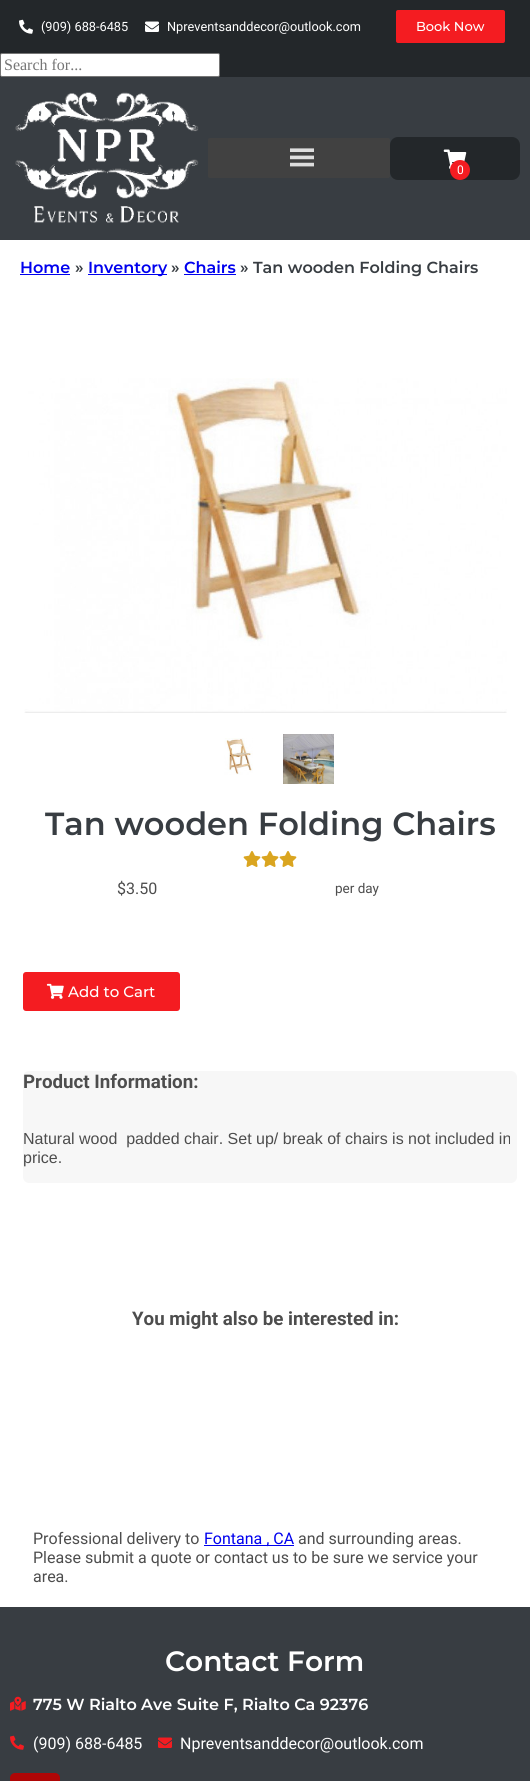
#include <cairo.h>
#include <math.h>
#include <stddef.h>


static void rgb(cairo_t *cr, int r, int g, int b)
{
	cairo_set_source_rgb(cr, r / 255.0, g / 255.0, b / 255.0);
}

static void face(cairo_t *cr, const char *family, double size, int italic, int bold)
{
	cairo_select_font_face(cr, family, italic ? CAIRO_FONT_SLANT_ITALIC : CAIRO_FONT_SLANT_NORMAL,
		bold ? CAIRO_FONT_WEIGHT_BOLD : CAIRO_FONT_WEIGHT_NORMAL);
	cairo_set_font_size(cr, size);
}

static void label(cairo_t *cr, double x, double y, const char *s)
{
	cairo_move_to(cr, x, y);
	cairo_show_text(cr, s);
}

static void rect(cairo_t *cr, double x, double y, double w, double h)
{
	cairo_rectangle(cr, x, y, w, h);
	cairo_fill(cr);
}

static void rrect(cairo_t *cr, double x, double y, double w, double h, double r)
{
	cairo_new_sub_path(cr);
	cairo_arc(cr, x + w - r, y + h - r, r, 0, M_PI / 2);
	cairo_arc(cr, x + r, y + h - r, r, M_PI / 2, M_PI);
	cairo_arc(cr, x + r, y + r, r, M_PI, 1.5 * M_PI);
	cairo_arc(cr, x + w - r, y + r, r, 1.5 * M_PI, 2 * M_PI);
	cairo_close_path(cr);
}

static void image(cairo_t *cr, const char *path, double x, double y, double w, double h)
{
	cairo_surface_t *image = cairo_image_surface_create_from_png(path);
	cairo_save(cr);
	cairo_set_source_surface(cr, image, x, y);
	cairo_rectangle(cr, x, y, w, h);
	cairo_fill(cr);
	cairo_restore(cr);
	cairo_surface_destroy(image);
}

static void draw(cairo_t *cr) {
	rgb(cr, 255, 255, 255);
	cairo_paint(cr);
	rgb(cr, 56, 61, 66);
	rect(cr, 0, 77, 530, 163);
	rgb(cr, 35, 39, 42);
	rect(cr, 0, 0, 530, 77);
	image(cr, "image0.png", 19, 19, 14, 15);
	face(cr, "Roboto", 12.75, 0, 0);
	rgb(cr, 255, 255, 255);
	label(cr, 41, 31, "(909) 688-6485");
	image(cr, "image1.png", 145, 21, 14, 11);
	label(cr, 167, 31, "Npreventsanddecor@outlook.com");
	rgb(cr, 244, 28, 33);
	rrect(cr, 396, 10, 109, 33, 2);
	cairo_fill(cr);
	face(cr, "Montserrat Medium", 13, 0, 0);
	rgb(cr, 255, 255, 255);
	label(cr, 416, 31, "Book Now");
	rrect(cr, 0.5, 53.5, 219, 23, 1.5);
	cairo_fill_preserve(cr);
	rgb(cr, 118, 118, 118);
	cairo_set_line_width(cr, 1);
	cairo_stroke(cr);
	face(cr, "Liberation Serif", 16, 0, 0);
	rgb(cr, 117, 117, 117);
	label(cr, 4, 70, "Search for...");
	image(cr, "image2.png", 15, 92, 184, 131);
	rgb(cr, 65, 65, 65);
	rrect(cr, 208, 138, 182, 40, 2);
	cairo_fill(cr);
	image(cr, "image3.png", 290, 148, 24, 19);
	rgb(cr, 35, 39, 42);
	rrect(cr, 390, 137, 130, 43, 8);
	cairo_fill(cr);
	image(cr, "image4.png", 443, 149, 24, 21);
	rgb(cr, 244, 28, 33);
	cairo_arc(cr, 460, 170, 10, 0, 2 * M_PI);
	cairo_fill(cr);
	face(cr, "Roboto", 12, 0, 0);
	rgb(cr, 255, 255, 255);
	label(cr, 457, 174, "0");
	face(cr, "Montserrat SemiBold", 16, 0, 0);
	rgb(cr, 0, 0, 238);
	label(cr, 20, 273, "Home");
	rect(cr, 20, 274, 50, 1);
	rgb(cr, 56, 61, 66);
	label(cr, 75, 273, "»");
	rgb(cr, 0, 0, 238);
	rect(cr, 88, 274, 79, 1);
	label(cr, 88, 273, "Inventory");
	rgb(cr, 56, 61, 66);
	label(cr, 171, 273, "»");
	rgb(cr, 0, 0, 238);
	label(cr, 184, 273, "Chairs");
	rect(cr, 184, 274, 52, 1);
	rgb(cr, 56, 61, 66);
	label(cr, 240, 273, "» Tan wooden Folding Chairs");
	image(cr, "image5.png", 24, 378, 483, 335);
	image(cr, "image6.png", 224, 738, 29, 37);
	image(cr, "image7.png", 283, 734, 51, 50);
	face(cr, "Montserrat SemiBold", 32, 0, 0);
	label(cr, 45, 835, "Tan wooden Folding Chairs");
	image(cr, "image8.png", 243, 851, 18, 16);
	image(cr, "image8.png", 261, 851, 18, 16);
	image(cr, "image8.png", 279, 851, 18, 16);
	face(cr, "Roboto", 16, 0, 0);
	rgb(cr, 77, 77, 77);
	label(cr, 117, 894, "$3.50");
	face(cr, "Roboto", 13.5, 0, 0);
	label(cr, 335, 893, "per day");
	rgb(cr, 244, 28, 33);
	rrect(cr, 23, 972, 157, 39, 3);
	cairo_fill(cr);
	image(cr, "image9.png", 46, 983, 18, 16);
	face(cr, "Montserrat Medium", 15, 0, 0);
	rgb(cr, 255, 255, 255);
	label(cr, 68, 997, "Add to Cart");
	rgb(cr, 247, 247, 247);
	rrect(cr, 23, 1071, 494, 112, 6);
	cairo_fill(cr);
	face(cr, "Roboto", 18.75, 0, 1);
	rgb(cr, 77, 77, 77);
	label(cr, 23, 1088, "Product Information:");
	face(cr, "Liberation Sans", 16, 0, 0);
	label(cr, 23, 1144, "Natural wood  padded chair. Set up/ break of chairs is not included in");
	label(cr, 23, 1163, "price.");
	face(cr, "Roboto", 18.75, 0, 1);
	label(cr, 132, 1325, "You might also be interested in:");
	face(cr, "Roboto", 16, 0, 0);
	label(cr, 33, 1544, "Professional delivery to");
	rgb(cr, 0, 0, 238);
	rect(cr, 204, 1545, 90, 1);
	label(cr, 204, 1544, "Fontana , CA");
	rgb(cr, 77, 77, 77);
	label(cr, 298, 1544, "and surrounding areas.");
	label(cr, 33, 1563, "Please submit a quote or contact us to be sure we service your");
	label(cr, 33, 1582, "area.");
	rgb(cr, 56, 61, 66);
	rect(cr, 0, 1607, 530, 174);
	face(cr, "Montserrat SemiBold", 28, 0, 0);
	rgb(cr, 255, 255, 255);
	label(cr, 165, 1671, "Contact Form");
	image(cr, "image10.png", 10, 1696, 16, 15);
	face(cr, "Montserrat SemiBold", 16, 0, 0);
	label(cr, 33, 1710, "775 W Rialto Ave Suite F, Rialto Ca 92376");
	image(cr, "image11.png", 10, 1735, 14, 15);
	face(cr, "Roboto", 16, 0, 0);
	label(cr, 33, 1749, "(909) 688-6485");
	image(cr, "image12.png", 158, 1737, 14, 11);
	label(cr, 180, 1749, "Npreventsanddecor@outlook.com");
	rgb(cr, 175, 6, 6);
	rrect(cr, 10, 1773, 50, 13, 5);
	cairo_fill(cr);
}

int main(void) {
	cairo_surface_t *surface = cairo_image_surface_create(CAIRO_FORMAT_RGB24, 530, 1781);
	cairo_t *cr = cairo_create(surface);
	cairo_font_options_t *options = cairo_font_options_create();
	cairo_font_options_set_hint_metrics(options, CAIRO_HINT_METRICS_OFF);
	cairo_font_options_set_hint_style(options, CAIRO_HINT_STYLE_NONE);
	cairo_set_font_options(cr, options);
	cairo_set_miter_limit(cr, 4);
	draw(cr);
	cairo_surface_write_to_png(surface, "render.png");
	cairo_font_options_destroy(options);
	cairo_destroy(cr);
	cairo_surface_destroy(surface);
	return 0;
}
